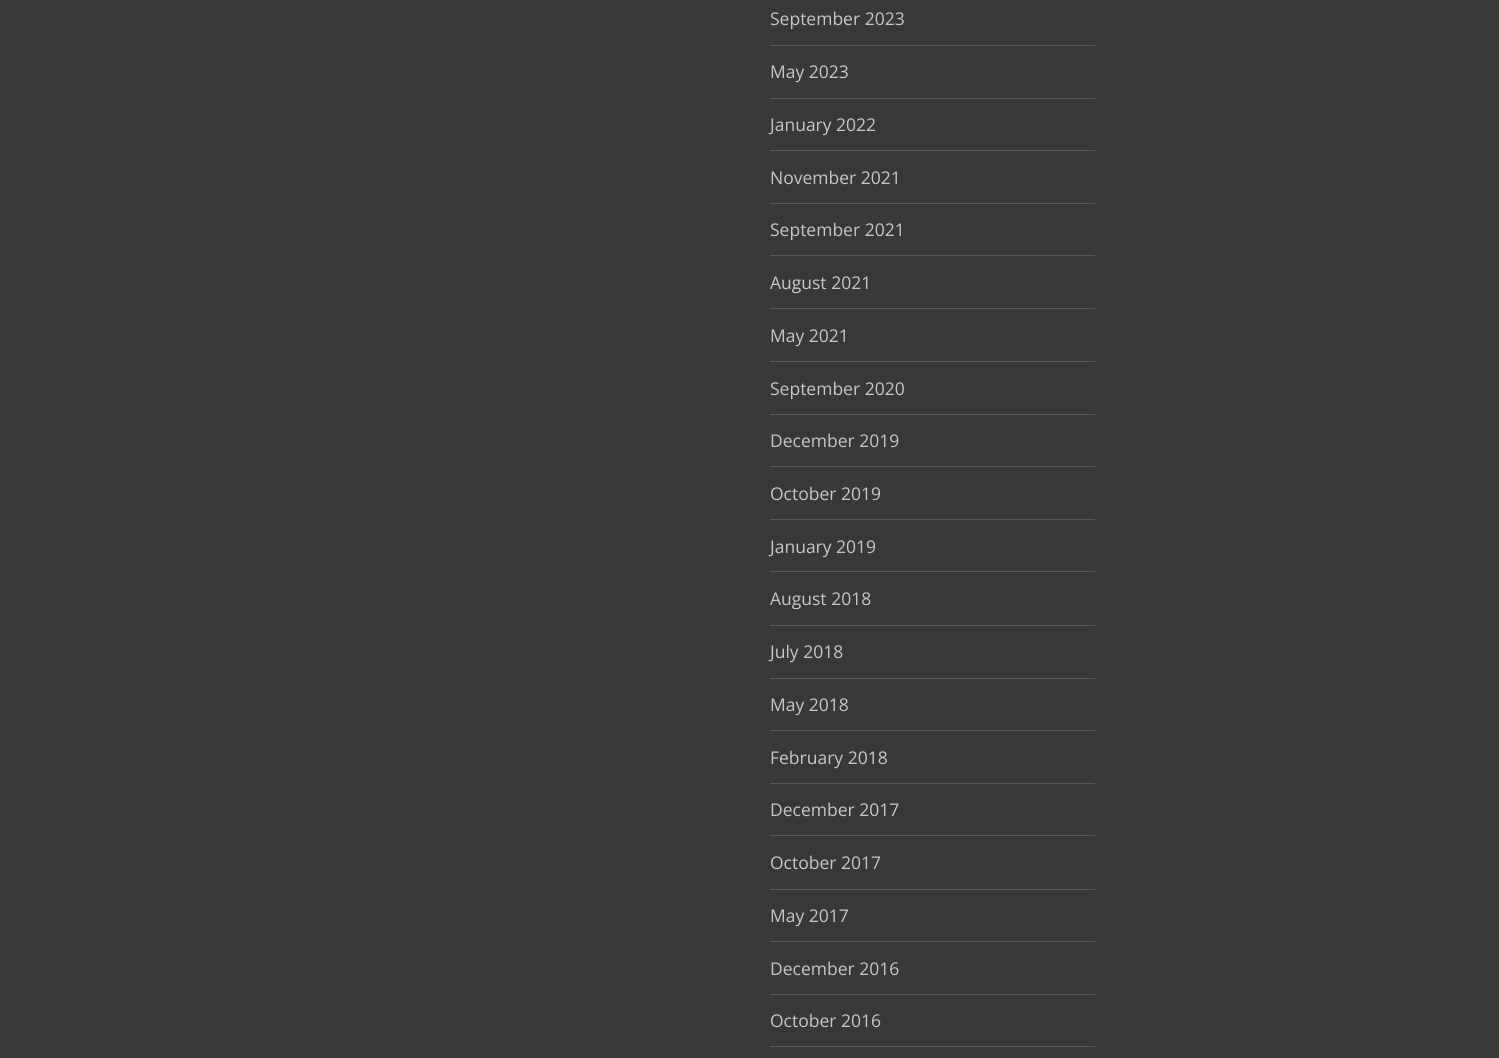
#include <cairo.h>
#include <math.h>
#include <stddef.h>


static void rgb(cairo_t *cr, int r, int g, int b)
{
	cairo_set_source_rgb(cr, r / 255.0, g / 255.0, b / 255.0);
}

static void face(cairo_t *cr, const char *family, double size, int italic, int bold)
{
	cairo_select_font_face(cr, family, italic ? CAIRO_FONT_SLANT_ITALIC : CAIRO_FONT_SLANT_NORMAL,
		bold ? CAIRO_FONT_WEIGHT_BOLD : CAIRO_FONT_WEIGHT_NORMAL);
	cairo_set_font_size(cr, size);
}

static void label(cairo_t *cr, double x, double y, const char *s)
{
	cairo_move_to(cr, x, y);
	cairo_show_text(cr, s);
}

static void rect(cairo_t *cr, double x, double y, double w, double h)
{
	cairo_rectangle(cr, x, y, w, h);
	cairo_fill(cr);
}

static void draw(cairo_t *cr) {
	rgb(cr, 56, 56, 56);
	cairo_paint(cr);
	rgb(cr, 87, 87, 87);
	rect(cr, 770, 45, 325, 1);
	face(cr, "Open Sans", 17.5, 0, 0);
	rgb(cr, 199, 199, 199);
	label(cr, 770, 25, "September 2023");
	rgb(cr, 87, 87, 87);
	rect(cr, 770, 98, 325, 1);
	rgb(cr, 199, 199, 199);
	label(cr, 770, 78, "May 2023");
	rgb(cr, 87, 87, 87);
	rect(cr, 770, 150, 325, 1);
	rgb(cr, 199, 199, 199);
	label(cr, 770, 131, "January 2022");
	rgb(cr, 87, 87, 87);
	rect(cr, 770, 203, 325, 1);
	rgb(cr, 199, 199, 199);
	label(cr, 770, 184, "November 2021");
	rgb(cr, 87, 87, 87);
	rect(cr, 770, 255, 325, 1);
	rgb(cr, 199, 199, 199);
	label(cr, 770, 236, "September 2021");
	rgb(cr, 87, 87, 87);
	rect(cr, 770, 308, 325, 1);
	rgb(cr, 199, 199, 199);
	label(cr, 770, 289, "August 2021");
	rgb(cr, 87, 87, 87);
	rect(cr, 770, 361, 325, 1);
	rgb(cr, 199, 199, 199);
	label(cr, 770, 342, "May 2021");
	rgb(cr, 87, 87, 87);
	rect(cr, 770, 414, 325, 1);
	rgb(cr, 199, 199, 199);
	label(cr, 770, 395, "September 2020");
	rgb(cr, 87, 87, 87);
	rect(cr, 770, 466, 325, 1);
	rgb(cr, 199, 199, 199);
	label(cr, 770, 447, "December 2019");
	rgb(cr, 87, 87, 87);
	rect(cr, 770, 519, 325, 1);
	rgb(cr, 199, 199, 199);
	label(cr, 770, 500, "October 2019");
	rgb(cr, 87, 87, 87);
	rect(cr, 770, 571, 325, 1);
	rgb(cr, 199, 199, 199);
	label(cr, 770, 553, "January 2019");
	rgb(cr, 87, 87, 87);
	rect(cr, 770, 625, 325, 1);
	rgb(cr, 199, 199, 199);
	label(cr, 770, 605, "August 2018");
	rgb(cr, 87, 87, 87);
	rect(cr, 770, 678, 325, 1);
	rgb(cr, 199, 199, 199);
	label(cr, 770, 658, "July 2018");
	rgb(cr, 87, 87, 87);
	rect(cr, 770, 730, 325, 1);
	rgb(cr, 199, 199, 199);
	label(cr, 770, 711, "May 2018");
	rgb(cr, 87, 87, 87);
	rect(cr, 770, 783, 325, 1);
	rgb(cr, 199, 199, 199);
	label(cr, 770, 764, "February 2018");
	rgb(cr, 87, 87, 87);
	rect(cr, 770, 835, 325, 1);
	rgb(cr, 199, 199, 199);
	label(cr, 770, 816, "December 2017");
	rgb(cr, 87, 87, 87);
	rect(cr, 770, 889, 325, 1);
	rgb(cr, 199, 199, 199);
	label(cr, 770, 869, "October 2017");
	rgb(cr, 87, 87, 87);
	rect(cr, 770, 941, 325, 1);
	rgb(cr, 199, 199, 199);
	label(cr, 770, 922, "May 2017");
	rgb(cr, 87, 87, 87);
	rect(cr, 770, 994, 325, 1);
	rgb(cr, 199, 199, 199);
	label(cr, 770, 975, "December 2016");
	rgb(cr, 87, 87, 87);
	rect(cr, 770, 1046, 325, 1);
	rgb(cr, 199, 199, 199);
	label(cr, 770, 1027, "October 2016");
}

int main(void) {
	cairo_surface_t *surface = cairo_image_surface_create(CAIRO_FORMAT_RGB24, 1499, 1058);
	cairo_t *cr = cairo_create(surface);
	cairo_font_options_t *options = cairo_font_options_create();
	cairo_font_options_set_hint_metrics(options, CAIRO_HINT_METRICS_OFF);
	cairo_font_options_set_hint_style(options, CAIRO_HINT_STYLE_NONE);
	cairo_set_font_options(cr, options);
	cairo_set_miter_limit(cr, 4);
	draw(cr);
	cairo_surface_write_to_png(surface, "render.png");
	cairo_font_options_destroy(options);
	cairo_destroy(cr);
	cairo_surface_destroy(surface);
	return 0;
}
